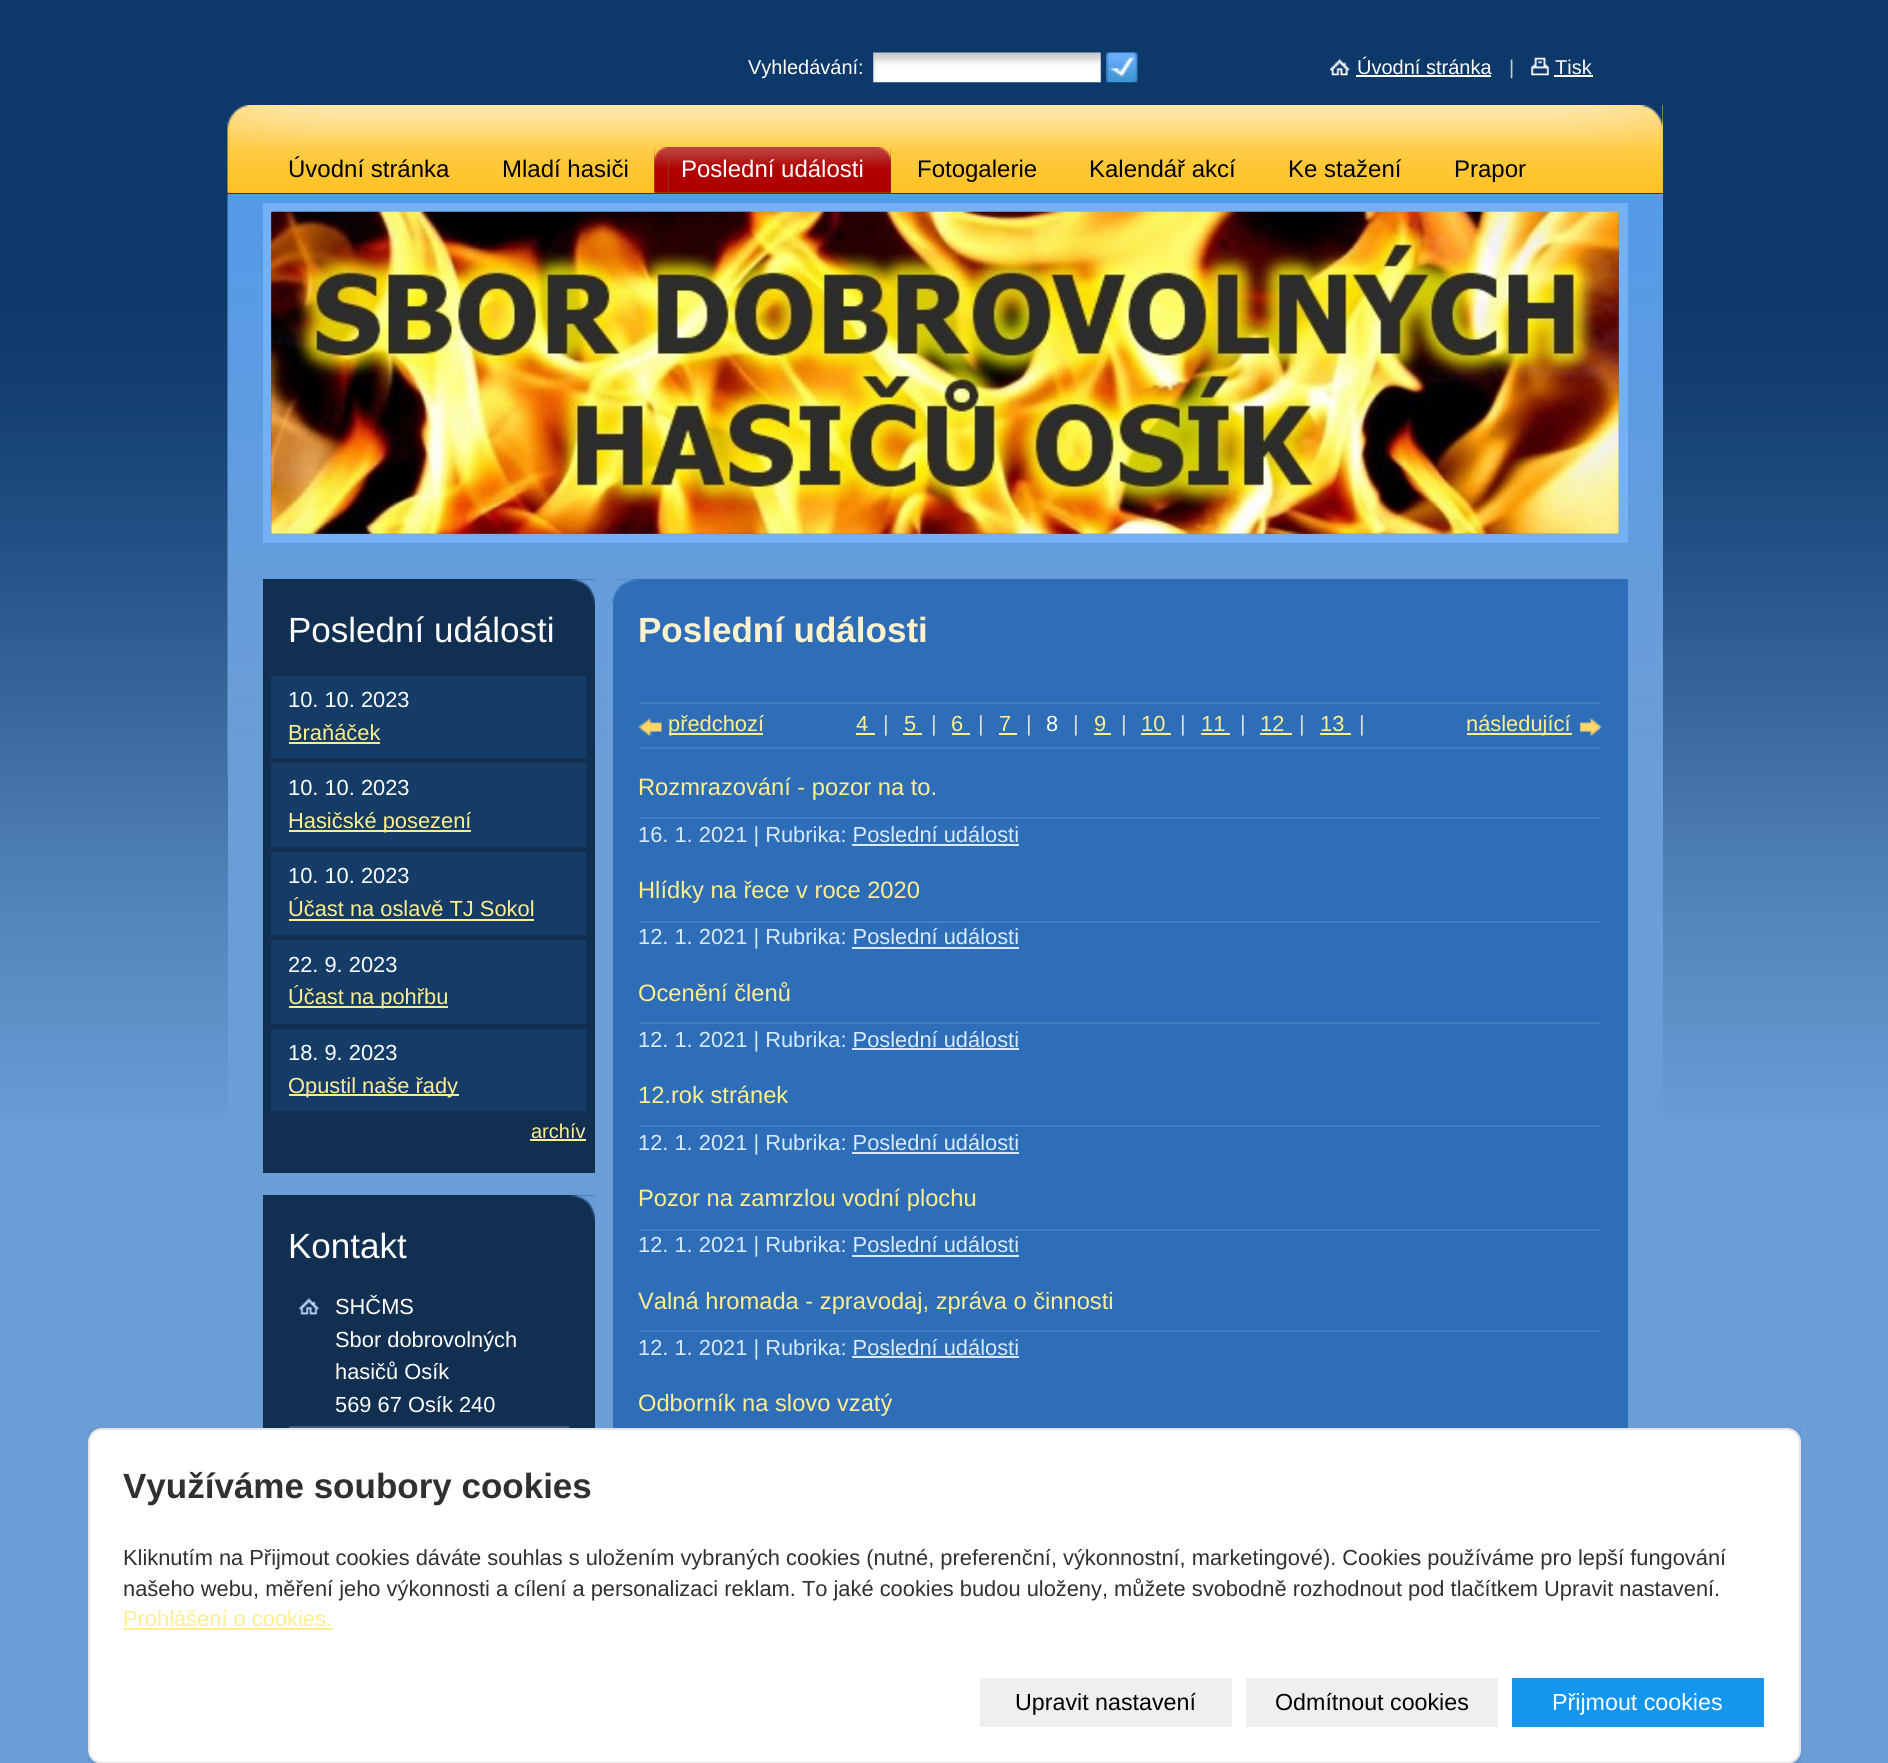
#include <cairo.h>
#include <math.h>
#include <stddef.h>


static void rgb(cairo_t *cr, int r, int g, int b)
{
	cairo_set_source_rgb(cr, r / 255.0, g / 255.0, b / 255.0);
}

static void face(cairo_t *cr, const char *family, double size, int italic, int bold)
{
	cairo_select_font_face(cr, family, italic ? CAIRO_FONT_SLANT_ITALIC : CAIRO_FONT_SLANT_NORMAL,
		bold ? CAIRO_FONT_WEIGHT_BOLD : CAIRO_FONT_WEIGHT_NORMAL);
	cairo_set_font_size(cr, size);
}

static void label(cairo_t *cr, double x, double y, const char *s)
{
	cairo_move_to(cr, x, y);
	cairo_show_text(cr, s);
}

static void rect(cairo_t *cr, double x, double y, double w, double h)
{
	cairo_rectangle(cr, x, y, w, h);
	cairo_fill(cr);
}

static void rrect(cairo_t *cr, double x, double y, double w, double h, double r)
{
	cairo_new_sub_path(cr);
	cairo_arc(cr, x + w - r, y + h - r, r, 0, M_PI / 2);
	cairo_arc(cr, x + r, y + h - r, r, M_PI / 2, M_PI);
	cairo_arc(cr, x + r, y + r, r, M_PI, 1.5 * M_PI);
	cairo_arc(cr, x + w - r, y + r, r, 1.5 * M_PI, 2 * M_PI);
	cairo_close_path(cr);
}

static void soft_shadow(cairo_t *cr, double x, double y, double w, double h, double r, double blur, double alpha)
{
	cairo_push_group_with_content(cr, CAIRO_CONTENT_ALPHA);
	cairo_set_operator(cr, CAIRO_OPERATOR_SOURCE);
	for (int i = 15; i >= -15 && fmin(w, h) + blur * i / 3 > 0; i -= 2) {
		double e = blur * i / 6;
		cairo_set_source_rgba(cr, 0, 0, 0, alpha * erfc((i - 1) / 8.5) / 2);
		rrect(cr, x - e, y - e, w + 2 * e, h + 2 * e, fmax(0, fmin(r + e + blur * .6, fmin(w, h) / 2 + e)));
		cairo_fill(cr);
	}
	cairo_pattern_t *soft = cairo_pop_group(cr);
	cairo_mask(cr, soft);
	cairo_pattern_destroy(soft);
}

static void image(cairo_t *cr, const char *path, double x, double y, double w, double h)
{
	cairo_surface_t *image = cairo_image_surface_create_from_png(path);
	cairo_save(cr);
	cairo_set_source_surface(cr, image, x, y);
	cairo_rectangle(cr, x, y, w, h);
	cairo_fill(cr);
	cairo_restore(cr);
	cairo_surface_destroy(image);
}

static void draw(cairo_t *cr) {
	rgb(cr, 107, 158, 215);
	cairo_paint(cr);
	image(cr, "image0.png", 0, 0, 1888, 1113);
	face(cr, "Liberation Sans", 20, 0, 0);
	rgb(cr, 255, 255, 255);
	label(cr, 748, 74, "Vyhledávání:");
	image(cr, "image1.png", 873, 52, 228, 31);
	image(cr, "image2.png", 1106, 52, 32, 31);
	image(cr, "image3.png", 1330, 59, 20, 17);
	label(cr, 1357, 74, "Úvodní stránka");
	rect(cr, 1356, 75, 135, 2);
	rgb(cr, 204, 204, 204);
	label(cr, 1509, 74, "|");
	image(cr, "image4.png", 1531, 57, 18, 19);
	rgb(cr, 255, 255, 255);
	label(cr, 1555, 74, "Tisk");
	rect(cr, 1554, 75, 39, 2);
	rgb(cr, 255, 195, 38);
	rect(cr, 228, 105, 1435, 88);
	image(cr, "image5.png", 227, 105, 1436, 88);
	rgb(cr, 176, 1, 1);
	rect(cr, 228, 193, 1435, 1);
	face(cr, "Liberation Sans", 24, 0, 0);
	rgb(cr, 0, 0, 0);
	label(cr, 288, 177, "Úvodní stránka");
	label(cr, 502, 177, "Mladí hasiči");
	rgb(cr, 127, 98, 21);
	rect(cr, 669, 192, 208, 1);
	image(cr, "image6.png", 654, 147, 223, 46);
	rect(cr, 655, 147, 14, 46);
	image(cr, "image7.png", 654, 147, 15, 46);
	rgb(cr, 255, 255, 255);
	label(cr, 681, 177, "Poslední události");
	rgb(cr, 127, 98, 21);
	rect(cr, 877, 147, 14, 46);
	image(cr, "image8.png", 876, 147, 15, 46);
	rgb(cr, 0, 0, 0);
	label(cr, 917, 177, "Fotogalerie");
	label(cr, 1089, 177, "Kalendář akcí");
	label(cr, 1288, 177, "Ke stažení");
	label(cr, 1454, 177, "Prapor");
	rgb(cr, 107, 158, 215);
	rect(cr, 228, 194, 1435, 919);
	image(cr, "image9.png", 227, 194, 1436, 582);
	rgb(cr, 115, 176, 244);
	rect(cr, 263, 203, 1365, 340);
	rgb(cr, 46, 110, 184);
	rect(cr, 271, 212, 1348, 322);
	image(cr, "image10.png", 271, 211, 1348, 323);
	rgb(cr, 17, 47, 81);
	rect(cr, 263, 579, 332, 594);
	image(cr, "image11.png", 571, 579, 24, 25);
	face(cr, "Liberation Sans", 35, 0, 0);
	rgb(cr, 255, 255, 255);
	label(cr, 288, 642, "Poslední události");
	rgb(cr, 21, 60, 103);
	rect(cr, 271, 676, 315, 82);
	face(cr, "Liberation Sans", 21.85, 0, 0);
	rgb(cr, 255, 255, 255);
	label(cr, 288, 707, "10. 10. 2023");
	rgb(cr, 255, 238, 142);
	label(cr, 288, 740, "Braňáček");
	rect(cr, 289, 742, 91, 2);
	rgb(cr, 21, 60, 103);
	rect(cr, 271, 763, 315, 84);
	rgb(cr, 255, 255, 255);
	label(cr, 288, 795, "10. 10. 2023");
	rgb(cr, 255, 238, 142);
	rect(cr, 289, 830, 182, 2);
	label(cr, 288, 828, "Hasičské posezení");
	rgb(cr, 21, 60, 103);
	rect(cr, 271, 852, 315, 83);
	rgb(cr, 255, 255, 255);
	label(cr, 288, 883, "10. 10. 2023");
	rgb(cr, 255, 238, 142);
	label(cr, 288, 916, "Účast na oslavě TJ Sokol");
	rect(cr, 289, 919, 245, 2);
	rgb(cr, 21, 60, 103);
	rect(cr, 271, 940, 315, 84);
	rgb(cr, 255, 255, 255);
	label(cr, 288, 972, "22. 9. 2023");
	rgb(cr, 255, 238, 142);
	rect(cr, 289, 1006, 159, 2);
	label(cr, 288, 1004, "Účast na pohřbu");
	rgb(cr, 21, 60, 103);
	rect(cr, 271, 1029, 315, 82);
	rgb(cr, 255, 255, 255);
	label(cr, 288, 1060, "18. 9. 2023");
	rgb(cr, 255, 238, 142);
	rect(cr, 289, 1094, 170, 2);
	label(cr, 288, 1093, "Opustil naše řady");
	face(cr, "Liberation Sans", 20, 0, 0);
	label(cr, 531, 1138, "archív");
	rect(cr, 530, 1139, 56, 2);
	rgb(cr, 17, 47, 81);
	rect(cr, 263, 1195, 332, 233);
	image(cr, "image11.png", 571, 1195, 24, 25);
	face(cr, "Liberation Sans", 35, 0, 0);
	rgb(cr, 255, 255, 255);
	label(cr, 288, 1258, "Kontakt");
	image(cr, "image12.png", 298, 1298, 21, 17);
	rgb(cr, 65, 89, 116);
	rect(cr, 289, 1426, 280, 2);
	face(cr, "Liberation Sans", 21.85, 0, 0);
	rgb(cr, 255, 255, 255);
	label(cr, 335, 1314, "SHČMS");
	label(cr, 335, 1347, "Sbor dobrovolných");
	label(cr, 335, 1379, "hasičů Osík");
	label(cr, 335, 1412, "569 67 Osík 240");
	rgb(cr, 46, 110, 184);
	rect(cr, 613, 579, 1015, 849);
	image(cr, "image13.png", 612, 579, 26, 25);
	face(cr, "Liberation Sans", 35, 0, 1);
	rgb(cr, 255, 243, 206);
	label(cr, 638, 642, "Poslední události");
	rgb(cr, 67, 125, 191);
	rect(cr, 639, 702, 962, 2);
	rect(cr, 639, 747, 962, 2);
	image(cr, "image14.png", 638, 717, 24, 20);
	rgb(cr, 255, 238, 142);
	rect(cr, 669, 733, 94, 2);
	face(cr, "Liberation Sans", 21.85, 0, 0);
	label(cr, 668, 731, "předchozí");
	label(cr, 856, 731, "4");
	rect(cr, 856, 733, 19, 2);
	rgb(cr, 221, 221, 221);
	label(cr, 883, 731, "|");
	rgb(cr, 255, 238, 142);
	label(cr, 904, 731, "5");
	rect(cr, 903, 733, 19, 2);
	rgb(cr, 221, 221, 221);
	label(cr, 931, 731, "|");
	rgb(cr, 255, 238, 142);
	label(cr, 951, 731, "6");
	rect(cr, 952, 733, 18, 2);
	rgb(cr, 221, 221, 221);
	label(cr, 978, 731, "|");
	rgb(cr, 255, 238, 142);
	label(cr, 999, 731, "7");
	rect(cr, 999, 733, 18, 2);
	rgb(cr, 221, 221, 221);
	label(cr, 1026, 731, "|");
	rgb(cr, 255, 255, 255);
	label(cr, 1046, 731, "8");
	rgb(cr, 221, 221, 221);
	label(cr, 1073, 731, "|");
	rgb(cr, 255, 238, 142);
	label(cr, 1094, 731, "9");
	rect(cr, 1094, 733, 17, 2);
	rgb(cr, 221, 221, 221);
	label(cr, 1121, 731, "|");
	rgb(cr, 255, 238, 142);
	label(cr, 1141, 731, "10");
	rect(cr, 1141, 733, 30, 2);
	rgb(cr, 221, 221, 221);
	label(cr, 1180, 731, "|");
	rgb(cr, 255, 238, 142);
	label(cr, 1201, 731, "11");
	rect(cr, 1201, 733, 29, 2);
	rgb(cr, 221, 221, 221);
	label(cr, 1240, 731, "|");
	rgb(cr, 255, 238, 142);
	label(cr, 1260, 731, "12");
	rect(cr, 1260, 733, 32, 2);
	rgb(cr, 221, 221, 221);
	label(cr, 1299, 731, "|");
	rgb(cr, 255, 238, 142);
	label(cr, 1320, 731, "13");
	rect(cr, 1320, 733, 31, 2);
	rgb(cr, 221, 221, 221);
	label(cr, 1359, 731, "|");
	image(cr, "image15.png", 1580, 717, 22, 20);
	rgb(cr, 255, 238, 142);
	rect(cr, 1467, 733, 105, 2);
	label(cr, 1466, 731, "následující");
	face(cr, "Liberation Sans", 23.7, 0, 0);
	label(cr, 638, 795, "Rozmrazování - pozor na to.");
	rgb(cr, 67, 125, 191);
	rect(cr, 639, 817, 962, 2);
	face(cr, "Liberation Sans", 21.85, 0, 0);
	rgb(cr, 215, 234, 255);
	label(cr, 638, 842, "16. 1. 2021 | Rubrika: Poslední události");
	rect(cr, 852, 844, 167, 2);
	face(cr, "Liberation Sans", 23.7, 0, 0);
	rgb(cr, 255, 238, 142);
	label(cr, 638, 898, "Hlídky na řece v roce 2020");
	rgb(cr, 67, 125, 191);
	rect(cr, 639, 921, 962, 2);
	face(cr, "Liberation Sans", 21.85, 0, 0);
	rgb(cr, 215, 234, 255);
	label(cr, 638, 944, "12. 1. 2021 | Rubrika: Poslední události");
	rect(cr, 852, 947, 167, 2);
	face(cr, "Liberation Sans", 23.7, 0, 0);
	rgb(cr, 255, 238, 142);
	label(cr, 638, 1001, "Ocenění členů");
	rgb(cr, 67, 125, 191);
	rect(cr, 639, 1022, 962, 2);
	face(cr, "Liberation Sans", 21.85, 0, 0);
	rgb(cr, 215, 234, 255);
	label(cr, 638, 1047, "12. 1. 2021 | Rubrika: Poslední události");
	rect(cr, 852, 1048, 167, 2);
	face(cr, "Liberation Sans", 23.7, 0, 0);
	rgb(cr, 255, 238, 142);
	label(cr, 638, 1103, "12.rok stránek");
	rgb(cr, 67, 125, 191);
	rect(cr, 639, 1125, 962, 2);
	face(cr, "Liberation Sans", 21.85, 0, 0);
	rgb(cr, 215, 234, 255);
	label(cr, 638, 1150, "12. 1. 2021 | Rubrika: Poslední události");
	rect(cr, 852, 1152, 167, 2);
	face(cr, "Liberation Sans", 23.7, 0, 0);
	rgb(cr, 255, 238, 142);
	label(cr, 638, 1206, "Pozor na zamrzlou vodní plochu");
	rgb(cr, 67, 125, 191);
	rect(cr, 639, 1229, 962, 2);
	face(cr, "Liberation Sans", 21.85, 0, 0);
	rgb(cr, 215, 234, 255);
	label(cr, 638, 1252, "12. 1. 2021 | Rubrika: Poslední události");
	rect(cr, 852, 1255, 167, 2);
	face(cr, "Liberation Sans", 23.7, 0, 0);
	rgb(cr, 255, 238, 142);
	label(cr, 638, 1309, "Valná hromada - zpravodaj, zpráva o činnosti");
	rgb(cr, 67, 125, 191);
	rect(cr, 639, 1330, 962, 2);
	face(cr, "Liberation Sans", 21.85, 0, 0);
	rgb(cr, 215, 234, 255);
	label(cr, 638, 1355, "12. 1. 2021 | Rubrika: Poslední události");
	rect(cr, 852, 1356, 167, 2);
	face(cr, "Liberation Sans", 23.7, 0, 0);
	rgb(cr, 255, 238, 142);
	label(cr, 638, 1411, "Odborník na slovo vzatý");
	cairo_save(cr);
	cairo_rectangle(cr, 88, 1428, 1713, 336);
	cairo_clip(cr);
	rgb(cr, 0, 0, 0);
	soft_shadow(cr, 105, 1449, 1678, 301, 0, 17.5, 0.5);
	cairo_restore(cr);
	rgb(cr, 255, 255, 255);
	rrect(cr, 88, 1428, 1713, 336, 14);
	cairo_fill(cr);
	rrect(cr, 89, 1429, 1711, 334, 13);
	cairo_set_source_rgba(cr, 0, 0, 0, 0.1);
	cairo_stroke(cr);
	face(cr, "Liberation Sans", 35, 0, 1);
	rgb(cr, 48, 48, 48);
	label(cr, 123, 1498, "Využíváme soubory cookies");
	face(cr, "Liberation Sans", 21.85, 0, 0);
	label(cr, 123, 1565, "Kliknutím na Přijmout cookies dáváte souhlas s uložením vybraných cookies (nutné, preferenční, výkonnostní, marketingové). Cookies používáme pro lepší fungování");
	label(cr, 123, 1596, "našeho webu, měření jeho výkonnosti a cílení a personalizaci reklam. To jaké cookies budou uloženy, můžete svobodně rozhodnout pod tlačítkem Upravit nastavení.");
	rgb(cr, 255, 238, 142);
	label(cr, 123, 1626, "Prohlášení o cookies.");
	rect(cr, 123, 1628, 210, 2);
	rgb(cr, 239, 239, 239);
	rect(cr, 980, 1678, 252, 49);
	face(cr, "Liberation Sans", 23.25, 0, 0);
	rgb(cr, 0, 0, 0);
	label(cr, 1015, 1710, "Upravit nastavení");
	rgb(cr, 239, 239, 239);
	rect(cr, 1246, 1678, 252, 49);
	rgb(cr, 0, 0, 0);
	label(cr, 1275, 1710, "Odmítnout cookies");
	rgb(cr, 20, 150, 238);
	rect(cr, 1512, 1678, 252, 49);
	rgb(cr, 255, 255, 255);
	label(cr, 1552, 1710, "Přijmout cookies");
}

int main(void) {
	cairo_surface_t *surface = cairo_image_surface_create(CAIRO_FORMAT_RGB24, 1888, 1763);
	cairo_t *cr = cairo_create(surface);
	cairo_font_options_t *options = cairo_font_options_create();
	cairo_font_options_set_hint_metrics(options, CAIRO_HINT_METRICS_OFF);
	cairo_font_options_set_hint_style(options, CAIRO_HINT_STYLE_NONE);
	cairo_set_font_options(cr, options);
	cairo_set_miter_limit(cr, 4);
	draw(cr);
	cairo_surface_write_to_png(surface, "render.png");
	cairo_font_options_destroy(options);
	cairo_destroy(cr);
	cairo_surface_destroy(surface);
	return 0;
}
